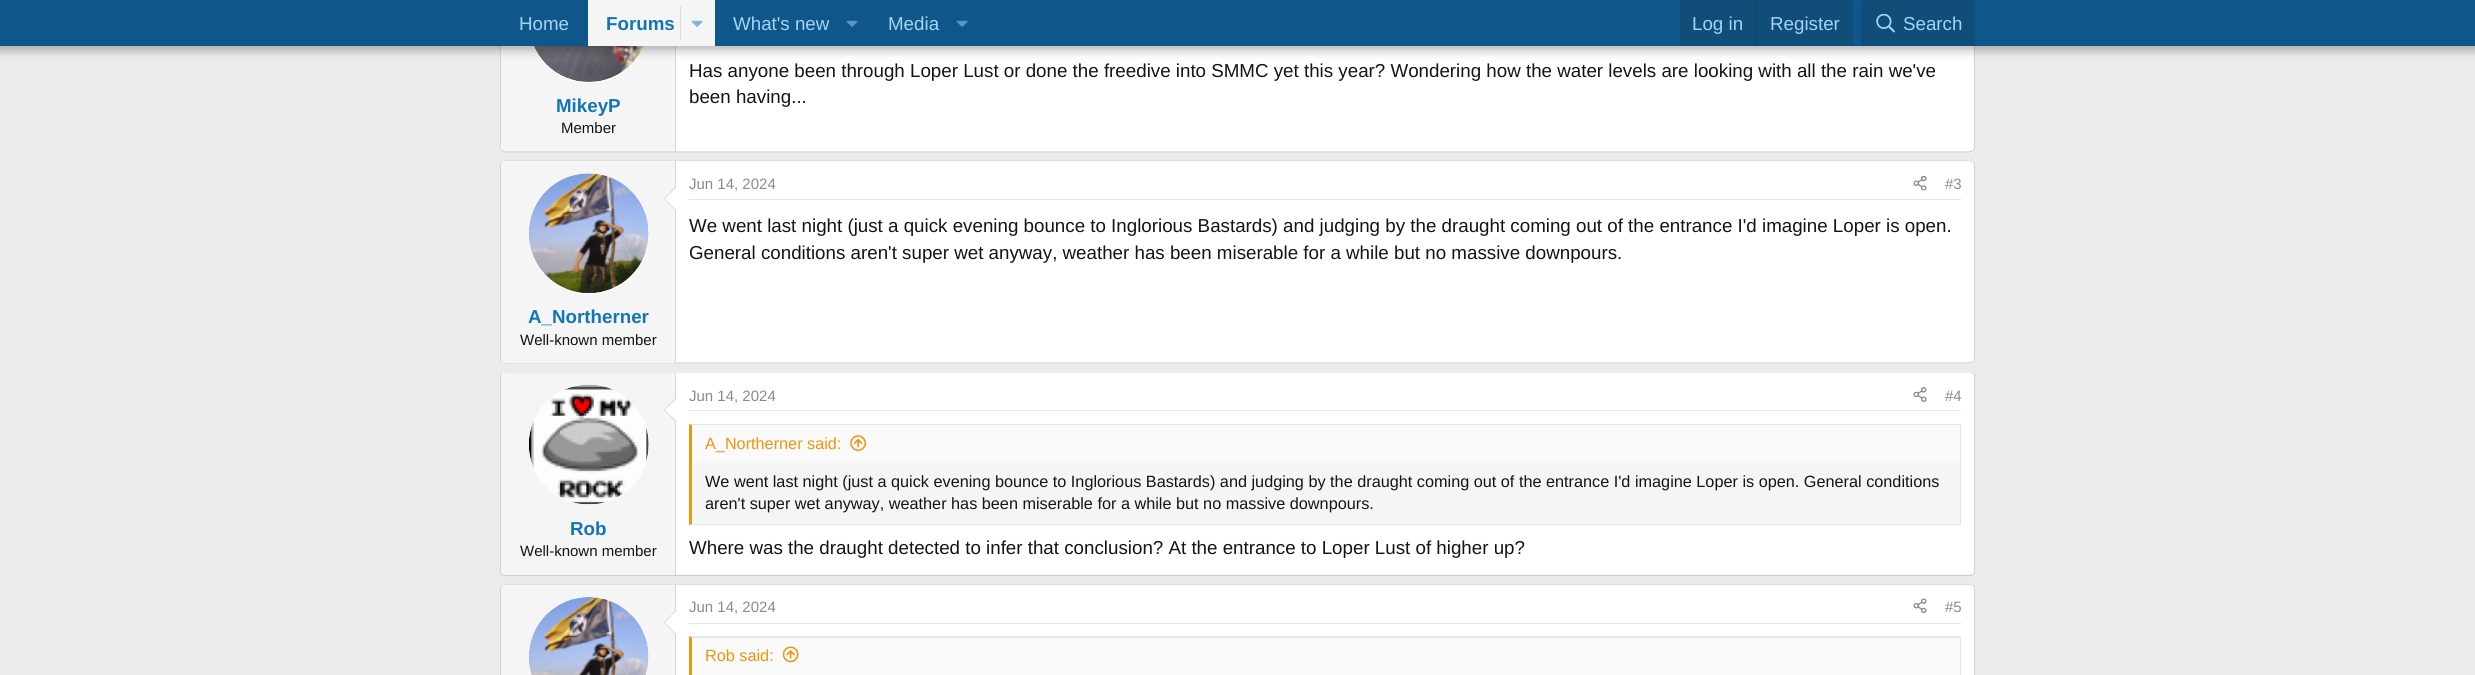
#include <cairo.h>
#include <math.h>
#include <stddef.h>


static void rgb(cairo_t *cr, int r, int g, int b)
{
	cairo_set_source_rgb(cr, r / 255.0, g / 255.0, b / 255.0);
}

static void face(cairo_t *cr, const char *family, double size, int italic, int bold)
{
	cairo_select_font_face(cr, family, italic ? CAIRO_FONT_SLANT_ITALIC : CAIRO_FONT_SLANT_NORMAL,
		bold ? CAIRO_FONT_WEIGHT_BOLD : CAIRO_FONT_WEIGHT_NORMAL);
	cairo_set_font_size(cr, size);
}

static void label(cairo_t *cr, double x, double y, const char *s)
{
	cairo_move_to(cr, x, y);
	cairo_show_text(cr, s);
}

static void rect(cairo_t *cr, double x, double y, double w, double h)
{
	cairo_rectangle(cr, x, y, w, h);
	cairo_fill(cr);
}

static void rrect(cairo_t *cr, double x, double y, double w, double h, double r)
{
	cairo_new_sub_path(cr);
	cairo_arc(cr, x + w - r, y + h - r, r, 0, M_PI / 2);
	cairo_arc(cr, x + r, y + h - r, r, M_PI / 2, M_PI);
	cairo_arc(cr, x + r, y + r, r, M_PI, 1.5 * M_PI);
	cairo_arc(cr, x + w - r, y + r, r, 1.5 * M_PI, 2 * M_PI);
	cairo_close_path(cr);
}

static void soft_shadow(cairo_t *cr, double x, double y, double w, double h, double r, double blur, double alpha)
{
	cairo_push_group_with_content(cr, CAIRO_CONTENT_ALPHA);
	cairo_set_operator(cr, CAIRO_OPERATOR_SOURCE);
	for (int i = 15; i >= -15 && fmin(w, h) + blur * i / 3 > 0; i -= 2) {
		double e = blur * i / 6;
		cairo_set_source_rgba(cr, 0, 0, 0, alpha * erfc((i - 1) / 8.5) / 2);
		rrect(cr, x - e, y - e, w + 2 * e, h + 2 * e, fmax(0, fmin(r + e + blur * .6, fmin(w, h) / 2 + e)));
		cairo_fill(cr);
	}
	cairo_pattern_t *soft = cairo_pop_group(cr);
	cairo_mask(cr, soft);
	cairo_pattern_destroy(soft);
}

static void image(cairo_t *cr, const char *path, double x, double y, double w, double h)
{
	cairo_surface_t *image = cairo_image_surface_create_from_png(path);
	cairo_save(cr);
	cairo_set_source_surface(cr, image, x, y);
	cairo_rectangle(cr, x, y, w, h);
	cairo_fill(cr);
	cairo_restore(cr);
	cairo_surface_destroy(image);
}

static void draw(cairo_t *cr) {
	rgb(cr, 235, 235, 235);
	cairo_paint(cr);
	rgb(cr, 255, 255, 255);
	rrect(cr, 500, -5, 1475, 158, 5);
	cairo_fill(cr);
	cairo_new_path(cr);
	cairo_move_to(cr, 1973, -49.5);
	cairo_curve_to(cr, 1974, -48.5, 1974.5, -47.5, 1974.5, -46);
	cairo_line_to(cr, 1974.5, 147.5);
	cairo_curve_to(cr, 1974.5, 148.5, 1974, 150, 1973, 150.5);
	rgb(cr, 214, 214, 214);
	cairo_set_line_width(cr, 1.2);
	cairo_stroke(cr);
	cairo_new_path(cr);
	cairo_move_to(cr, 1973, 150.5);
	cairo_line_to(cr, 1970, 152);
	cairo_line_to(cr, 505, 152);
	cairo_line_to(cr, 502, 150.5);
	rgb(cr, 204, 204, 204);
	cairo_stroke(cr);
	cairo_new_path(cr);
	cairo_move_to(cr, 502, 150.5);
	cairo_curve_to(cr, 501, 150, 500.5, 148.5, 500.5, 147.5);
	cairo_line_to(cr, 500.5, -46);
	cairo_curve_to(cr, 500.5, -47.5, 501, -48.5, 502, -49.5);
	rgb(cr, 214, 214, 214);
	cairo_stroke(cr);
	rgb(cr, 245, 245, 245);
	cairo_new_path(cr);
	cairo_move_to(cr, 505, -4);
	cairo_line_to(cr, 676, -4);
	cairo_line_to(cr, 676, 151);
	cairo_line_to(cr, 505, 151);
	cairo_curve_to(cr, 503, 151, 501, 149, 501, 147);
	cairo_line_to(cr, 501, 0);
	cairo_curve_to(cr, 501, -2, 503, -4, 505, -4);
	cairo_close_path(cr);
	cairo_fill(cr);
	rgb(cr, 214, 214, 214);
	rect(cr, 675, 46, 1, 105);
	rgb(cr, 255, 255, 255);
	cairo_arc(cr, 589, 23, 60, 0, 2 * M_PI);
	cairo_fill(cr);
	image(cr, "image3.png", 534, 46, 110, 36);
	rgb(cr, 0, 0, 0);
	soft_shadow(cr, -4, -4, 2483, 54, 0, 5, 0.3);
	rgb(cr, 15, 87, 138);
	rect(cr, 0, 0, 2475, 46);
	face(cr, "Liberation Sans", 18.75, 0, 0);
	rgb(cr, 163, 212, 245);
	label(cr, 519, 30, "Home");
	rgb(cr, 245, 245, 245);
	rect(cr, 588, 0, 127, 46);
	face(cr, "Liberation Sans", 18.75, 0, 1);
	rgb(cr, 20, 116, 184);
	label(cr, 606, 30, "Forums");
	rgb(cr, 206, 223, 235);
	rect(cr, 680, 6, 1, 34);
	image(cr, "image0.png", 691, 20, 12, 7);
	face(cr, "Liberation Sans", 18.75, 0, 0);
	rgb(cr, 163, 212, 245);
	label(cr, 733, 30, "What's new");
	image(cr, "image1.png", 846, 20, 12, 7);
	label(cr, 888, 30, "Media");
	image(cr, "image1.png", 956, 20, 12, 7);
	rgb(cr, 16, 77, 120);
	rect(cr, 1680, 0, 173, 46);
	rgb(cr, 163, 212, 245);
	label(cr, 1692, 30, "Log in");
	rgb(cr, 17, 68, 105);
	rect(cr, 1756, 0, 1, 46);
	rgb(cr, 163, 212, 245);
	label(cr, 1770, 30, "Register");
	rgb(cr, 16, 77, 120);
	cairo_new_path(cr);
	cairo_move_to(cr, 1866, 0);
	cairo_line_to(cr, 1970, 0);
	cairo_curve_to(cr, 1973, 0, 1975, 2, 1975, 5);
	cairo_line_to(cr, 1975, 46);
	cairo_line_to(cr, 1861, 46);
	cairo_line_to(cr, 1861, 5);
	cairo_curve_to(cr, 1861, 2, 1863, 0, 1866, 0);
	cairo_close_path(cr);
	cairo_fill(cr);
	image(cr, "image2.png", 1876, 14, 19, 19);
	rgb(cr, 163, 212, 245);
	label(cr, 1903, 30, "Search");
	rgb(cr, 20, 20, 20);
	label(cr, 689, 77, "Has anyone been through Loper Lust or done the freedive into SMMC yet this year? Wondering how the water levels are looking with all the rain we've");
	label(cr, 689, 103, "been having...");
	face(cr, "Liberation Sans", 18.75, 0, 1);
	rgb(cr, 20, 116, 184);
	label(cr, 556, 112, "MikeyP");
	face(cr, "Liberation Sans", 15, 0, 0);
	rgb(cr, 20, 20, 20);
	label(cr, 561, 133, "Member");
	rgb(cr, 255, 255, 255);
	rrect(cr, 500, 160, 1475, 204, 5);
	cairo_fill(cr);
	cairo_new_path(cr);
	cairo_move_to(cr, 502, 162);
	cairo_line_to(cr, 505, 160.5);
	cairo_line_to(cr, 1970, 160.5);
	cairo_line_to(cr, 1973, 162);
	rgb(cr, 224, 224, 224);
	cairo_stroke(cr);
	cairo_new_path(cr);
	cairo_move_to(cr, 1973, 162);
	cairo_curve_to(cr, 1974, 162.5, 1974.5, 164, 1974.5, 165);
	cairo_line_to(cr, 1974.5, 359);
	cairo_curve_to(cr, 1974.5, 360, 1974, 361, 1973, 362);
	rgb(cr, 214, 214, 214);
	cairo_stroke(cr);
	cairo_new_path(cr);
	cairo_move_to(cr, 1973, 362);
	cairo_line_to(cr, 1970, 363);
	cairo_line_to(cr, 505, 363);
	cairo_line_to(cr, 502, 362);
	rgb(cr, 204, 204, 204);
	cairo_stroke(cr);
	cairo_new_path(cr);
	cairo_move_to(cr, 502, 362);
	cairo_curve_to(cr, 501, 361, 500.5, 360, 500.5, 359);
	cairo_line_to(cr, 500.5, 165);
	cairo_curve_to(cr, 500.5, 164, 501, 162.5, 502, 162);
	rgb(cr, 214, 214, 214);
	cairo_stroke(cr);
	rgb(cr, 229, 229, 229);
	rect(cr, 689, 199, 1272, 1);
	rgb(cr, 138, 138, 138);
	label(cr, 689, 189, "Jun 14, 2024");
	image(cr, "image4.png", 1913, 176, 14, 15);
	label(cr, 1945, 189, "#3");
	face(cr, "Liberation Sans", 18.75, 0, 0);
	rgb(cr, 20, 20, 20);
	label(cr, 689, 232, "We went last night (just a quick evening bounce to Inglorious Bastards) and judging by the draught coming out of the entrance I'd imagine Loper is open.");
	label(cr, 689, 259, "General conditions aren't super wet anyway, weather has been miserable for a while but no massive downpours.");
	rgb(cr, 245, 245, 245);
	cairo_new_path(cr);
	cairo_move_to(cr, 505, 161);
	cairo_line_to(cr, 676, 161);
	cairo_line_to(cr, 676, 363);
	cairo_line_to(cr, 505, 363);
	cairo_curve_to(cr, 503, 363, 501, 361, 501, 359);
	cairo_line_to(cr, 501, 165);
	cairo_curve_to(cr, 501, 163, 503, 161, 505, 161);
	cairo_close_path(cr);
	cairo_fill(cr);
	rgb(cr, 214, 214, 214);
	rect(cr, 675, 161, 1, 202);
	rgb(cr, 255, 255, 255);
	cairo_arc(cr, 589, 234, 60, 0, 2 * M_PI);
	cairo_fill(cr);
	image(cr, "image5.png", 529, 173, 120, 120);
	rgb(cr, 214, 214, 214);
	cairo_new_path(cr);
	cairo_move_to(cr, 676, 186);
	cairo_line_to(cr, 676, 211);
	cairo_line_to(cr, 664, 199);
	cairo_close_path(cr);
	cairo_fill(cr);
	rgb(cr, 255, 255, 255);
	cairo_new_path(cr);
	cairo_move_to(cr, 676, 187.5);
	cairo_line_to(cr, 676, 210);
	cairo_line_to(cr, 665, 199);
	cairo_close_path(cr);
	cairo_fill(cr);
	face(cr, "Liberation Sans", 18.75, 0, 1);
	rgb(cr, 20, 116, 184);
	label(cr, 528, 323, "A_Northerner");
	face(cr, "Liberation Sans", 15, 0, 0);
	rgb(cr, 20, 20, 20);
	label(cr, 520, 345, "Well-known member");
	rgb(cr, 255, 255, 255);
	rrect(cr, 500, 371, 1475, 205, 5);
	cairo_fill(cr);
	cairo_new_path(cr);
	cairo_move_to(cr, 502, 373);
	cairo_line_to(cr, 505, 372);
	cairo_line_to(cr, 1970, 372);
	cairo_line_to(cr, 1973, 373);
	rgb(cr, 224, 224, 224);
	cairo_stroke(cr);
	cairo_new_path(cr);
	cairo_move_to(cr, 1973, 373);
	cairo_curve_to(cr, 1974, 374, 1974.5, 375, 1974.5, 376);
	cairo_line_to(cr, 1974.5, 571);
	cairo_curve_to(cr, 1974.5, 572.5, 1974, 573.5, 1973, 574.5);
	rgb(cr, 214, 214, 214);
	cairo_stroke(cr);
	cairo_new_path(cr);
	cairo_move_to(cr, 1973, 574.5);
	cairo_line_to(cr, 1970, 575.5);
	cairo_line_to(cr, 505, 575.5);
	cairo_line_to(cr, 502, 574.5);
	rgb(cr, 204, 204, 204);
	cairo_stroke(cr);
	cairo_new_path(cr);
	cairo_move_to(cr, 502, 574.5);
	cairo_curve_to(cr, 501, 573.5, 500.5, 572.5, 500.5, 571);
	cairo_line_to(cr, 500.5, 376);
	cairo_curve_to(cr, 500.5, 375, 501, 374, 502, 373);
	rgb(cr, 214, 214, 214);
	cairo_stroke(cr);
	rgb(cr, 245, 245, 245);
	cairo_new_path(cr);
	cairo_move_to(cr, 505, 373);
	cairo_line_to(cr, 676, 373);
	cairo_line_to(cr, 676, 575);
	cairo_line_to(cr, 505, 575);
	cairo_curve_to(cr, 503, 575, 501, 573, 501, 571);
	cairo_line_to(cr, 501, 377);
	cairo_curve_to(cr, 501, 375, 503, 373, 505, 373);
	cairo_close_path(cr);
	cairo_fill(cr);
	rgb(cr, 214, 214, 214);
	rect(cr, 675, 373, 1, 202);
	rgb(cr, 255, 255, 255);
	cairo_arc(cr, 589, 445, 60, 0, 2 * M_PI);
	cairo_fill(cr);
	image(cr, "image6.png", 529, 384, 120, 121);
	rgb(cr, 214, 214, 214);
	cairo_new_path(cr);
	cairo_move_to(cr, 676, 397.5);
	cairo_line_to(cr, 676, 422.5);
	cairo_line_to(cr, 664, 410);
	cairo_close_path(cr);
	cairo_fill(cr);
	rgb(cr, 255, 255, 255);
	cairo_new_path(cr);
	cairo_move_to(cr, 676, 399);
	cairo_line_to(cr, 676, 421);
	cairo_line_to(cr, 665, 410);
	cairo_close_path(cr);
	cairo_fill(cr);
	face(cr, "Liberation Sans", 18.75, 0, 1);
	rgb(cr, 20, 116, 184);
	label(cr, 570, 535, "Rob");
	face(cr, "Liberation Sans", 15, 0, 0);
	rgb(cr, 20, 20, 20);
	label(cr, 520, 556, "Well-known member");
	rgb(cr, 229, 229, 229);
	rect(cr, 689, 410, 1272, 1);
	rgb(cr, 138, 138, 138);
	label(cr, 689, 401, "Jun 14, 2024");
	image(cr, "image7.png", 1913, 387, 14, 15);
	label(cr, 1945, 401, "#4");
	rgb(cr, 245, 245, 245);
	rect(cr, 693, 463, 1267, 61);
	rgb(cr, 229, 229, 229);
	cairo_new_path(cr);
	cairo_move_to(cr, 689, 424);
	cairo_line_to(cr, 1961, 424);
	cairo_line_to(cr, 1960, 425);
	cairo_line_to(cr, 692, 425);
	cairo_close_path(cr);
	cairo_fill(cr);
	rect(cr, 1960, 424, 1, 101);
	cairo_new_path(cr);
	cairo_move_to(cr, 1961, 525);
	cairo_line_to(cr, 689, 525);
	cairo_line_to(cr, 692, 524);
	cairo_line_to(cr, 1960, 524);
	cairo_close_path(cr);
	cairo_fill(cr);
	rgb(cr, 242, 147, 13);
	cairo_new_path(cr);
	cairo_move_to(cr, 689, 525);
	cairo_line_to(cr, 689, 424);
	cairo_line_to(cr, 692, 425);
	cairo_line_to(cr, 692, 524);
	cairo_close_path(cr);
	cairo_fill(cr);
	rgb(cr, 250, 250, 250);
	rect(cr, 693, 425, 1267, 38);
	face(cr, "Liberation Sans", 16.25, 0, 0);
	rgb(cr, 242, 147, 13);
	label(cr, 705, 449, "A_Northerner said:");
	image(cr, "image8.png", 850, 435, 16, 16);
	rgb(cr, 20, 20, 20);
	label(cr, 705, 487, "We went last night (just a quick evening bounce to Inglorious Bastards) and judging by the draught coming out of the entrance I'd imagine Loper is open. General conditions");
	label(cr, 705, 509, "aren't super wet anyway, weather has been miserable for a while but no massive downpours.");
	face(cr, "Liberation Sans", 18.75, 0, 0);
	label(cr, 689, 554, "Where was the draught detected to infer that conclusion? At the entrance to Loper Lust of higher up?");
	rgb(cr, 255, 255, 255);
	rrect(cr, 500, 584, 1475, 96, 5);
	cairo_fill(cr);
	cairo_new_path(cr);
	cairo_move_to(cr, 502, 585.5);
	cairo_line_to(cr, 505, 584.5);
	cairo_line_to(cr, 1970, 584.5);
	cairo_line_to(cr, 1973, 585.5);
	rgb(cr, 224, 224, 224);
	cairo_stroke(cr);
	cairo_new_path(cr);
	cairo_move_to(cr, 1973, 585.5);
	cairo_curve_to(cr, 1974, 586.5, 1974.5, 587.5, 1974.5, 589);
	cairo_line_to(cr, 1974.5, 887.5);
	cairo_curve_to(cr, 1974.5, 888.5, 1974, 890, 1973, 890.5);
	rgb(cr, 214, 214, 214);
	cairo_stroke(cr);
	cairo_new_path(cr);
	cairo_move_to(cr, 502, 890.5);
	cairo_curve_to(cr, 501, 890, 500.5, 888.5, 500.5, 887.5);
	cairo_line_to(cr, 500.5, 589);
	cairo_curve_to(cr, 500.5, 587.5, 501, 586.5, 502, 585.5);
	cairo_stroke(cr);
	rgb(cr, 245, 245, 245);
	cairo_new_path(cr);
	cairo_move_to(cr, 505, 585);
	cairo_line_to(cr, 676, 585);
	cairo_line_to(cr, 676, 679);
	cairo_line_to(cr, 505, 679);
	cairo_curve_to(cr, 503, 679, 501, 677, 501, 675);
	cairo_line_to(cr, 501, 589);
	cairo_curve_to(cr, 501, 587, 503, 585, 505, 585);
	cairo_close_path(cr);
	cairo_fill(cr);
	rgb(cr, 214, 214, 214);
	rect(cr, 675, 585, 1, 90);
	rgb(cr, 255, 255, 255);
	cairo_arc(cr, 589, 658, 60, 0, 2 * M_PI);
	cairo_fill(cr);
	image(cr, "image9.png", 529, 597, 120, 78);
	rgb(cr, 214, 214, 214);
	cairo_new_path(cr);
	cairo_move_to(cr, 676, 610);
	cairo_line_to(cr, 676, 635);
	cairo_line_to(cr, 664, 622.5);
	cairo_close_path(cr);
	cairo_fill(cr);
	rgb(cr, 255, 255, 255);
	cairo_new_path(cr);
	cairo_move_to(cr, 676, 611);
	cairo_line_to(cr, 676, 634);
	cairo_line_to(cr, 665, 622.5);
	cairo_close_path(cr);
	cairo_fill(cr);
	rgb(cr, 229, 229, 229);
	rect(cr, 689, 623, 1272, 1);
	face(cr, "Liberation Sans", 15, 0, 0);
	rgb(cr, 138, 138, 138);
	label(cr, 689, 612, "Jun 14, 2024");
	image(cr, "image10.png", 1913, 598, 14, 15);
	label(cr, 1945, 612, "#5");
	rgb(cr, 229, 229, 229);
	cairo_new_path(cr);
	cairo_move_to(cr, 689, 636);
	cairo_line_to(cr, 1961, 636);
	cairo_line_to(cr, 1960, 638);
	cairo_line_to(cr, 692, 638);
	cairo_close_path(cr);
	cairo_fill(cr);
	rect(cr, 1960, 636, 1, 39);
	rgb(cr, 242, 147, 13);
	cairo_new_path(cr);
	cairo_move_to(cr, 689, 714);
	cairo_line_to(cr, 689, 636);
	cairo_line_to(cr, 692, 638);
	cairo_line_to(cr, 692, 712);
	cairo_close_path(cr);
	cairo_fill(cr);
	rgb(cr, 250, 250, 250);
	rect(cr, 693, 638, 1267, 37);
	face(cr, "Liberation Sans", 16.25, 0, 0);
	rgb(cr, 242, 147, 13);
	label(cr, 705, 661, "Rob said:");
	image(cr, "image11.png", 783, 646, 16, 17);
}

int main(void) {
	cairo_surface_t *surface = cairo_image_surface_create(CAIRO_FORMAT_RGB24, 2475, 675);
	cairo_t *cr = cairo_create(surface);
	cairo_font_options_t *options = cairo_font_options_create();
	cairo_font_options_set_hint_metrics(options, CAIRO_HINT_METRICS_OFF);
	cairo_font_options_set_hint_style(options, CAIRO_HINT_STYLE_NONE);
	cairo_set_font_options(cr, options);
	cairo_set_miter_limit(cr, 4);
	draw(cr);
	cairo_surface_write_to_png(surface, "render.png");
	cairo_font_options_destroy(options);
	cairo_destroy(cr);
	cairo_surface_destroy(surface);
	return 0;
}
